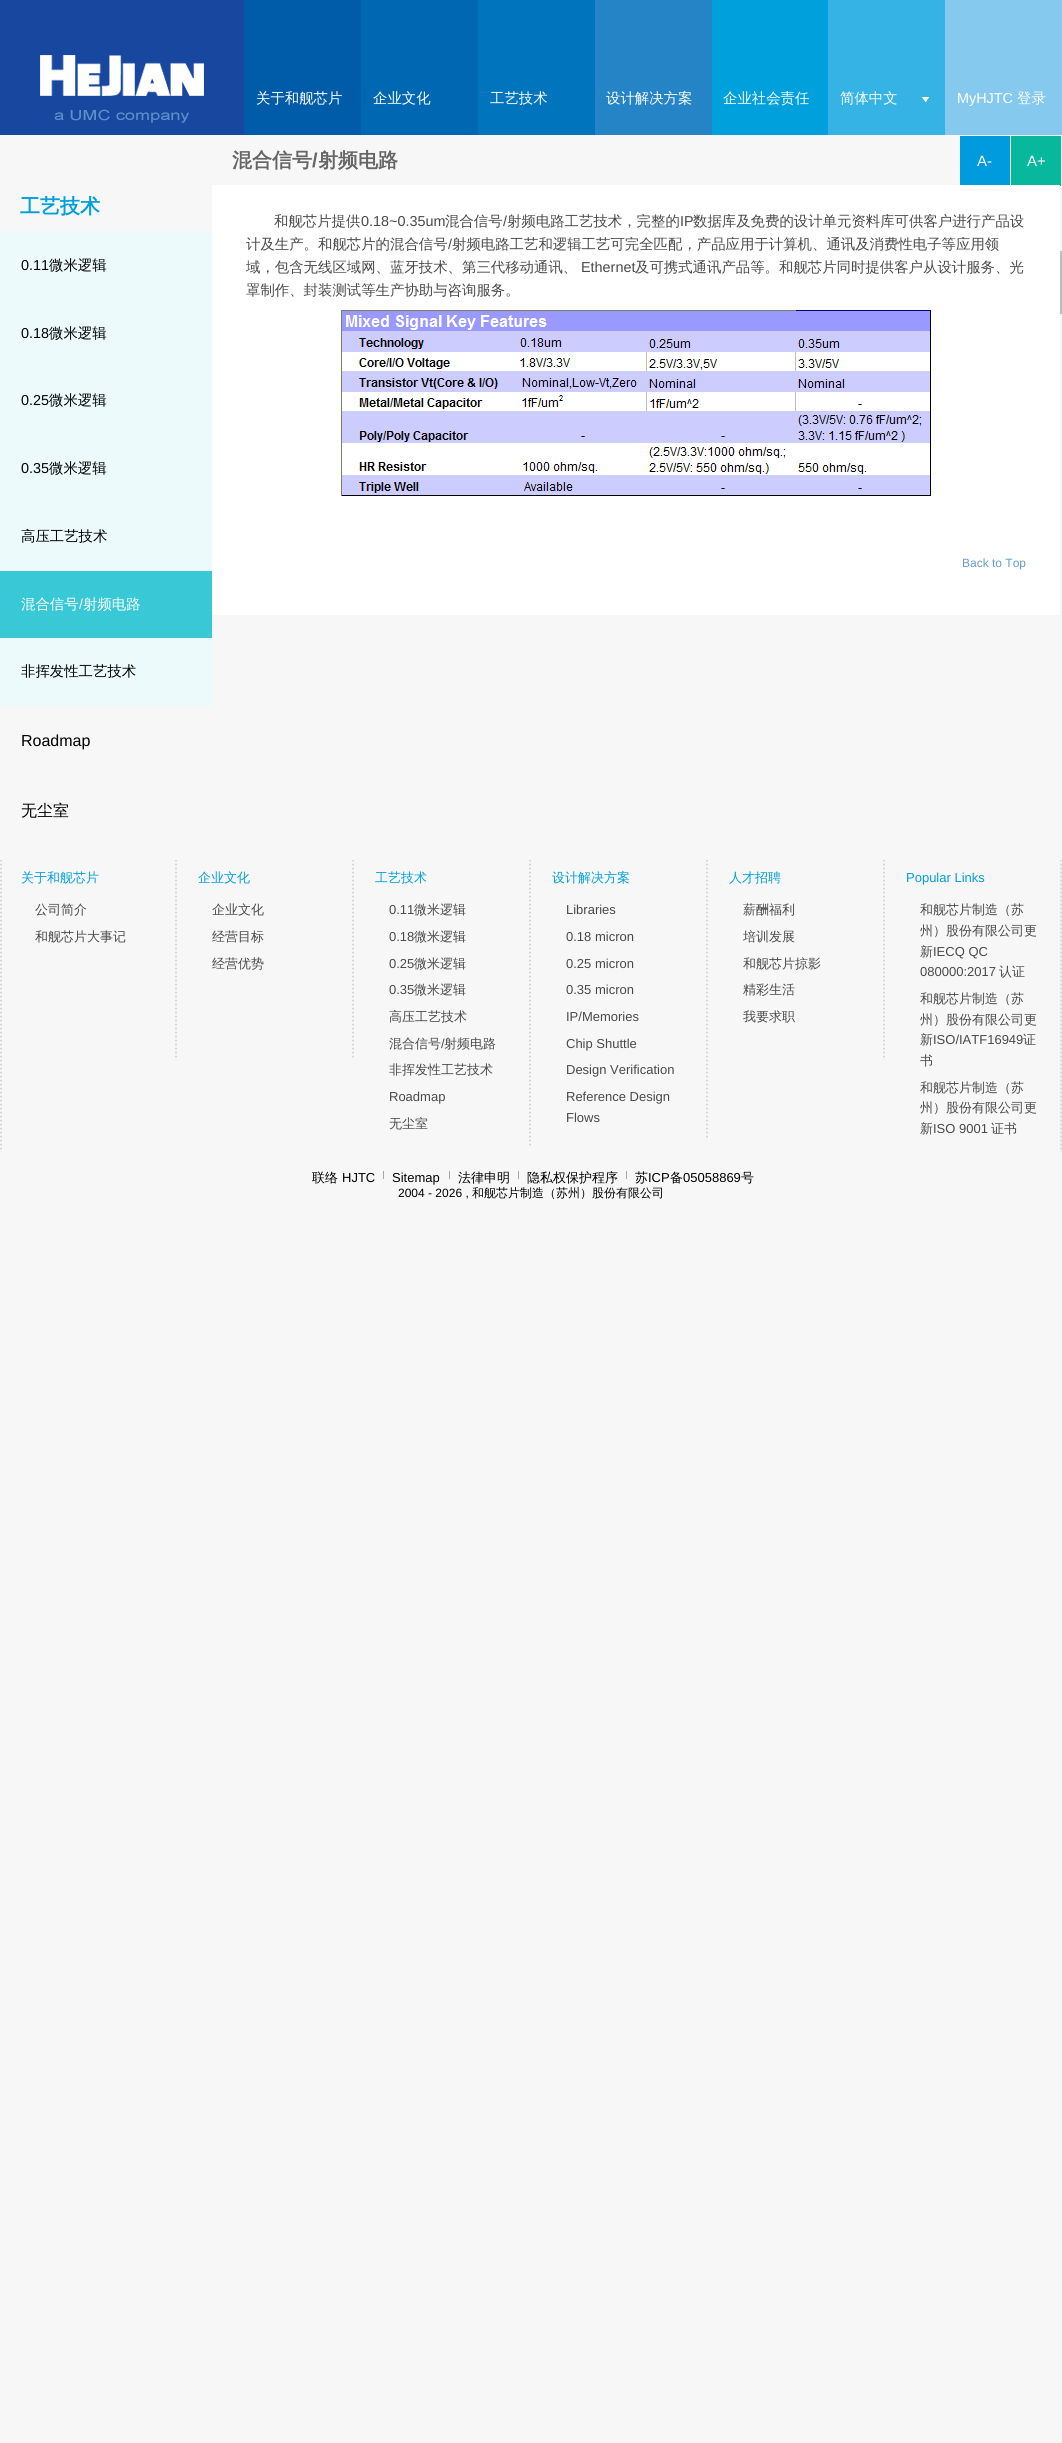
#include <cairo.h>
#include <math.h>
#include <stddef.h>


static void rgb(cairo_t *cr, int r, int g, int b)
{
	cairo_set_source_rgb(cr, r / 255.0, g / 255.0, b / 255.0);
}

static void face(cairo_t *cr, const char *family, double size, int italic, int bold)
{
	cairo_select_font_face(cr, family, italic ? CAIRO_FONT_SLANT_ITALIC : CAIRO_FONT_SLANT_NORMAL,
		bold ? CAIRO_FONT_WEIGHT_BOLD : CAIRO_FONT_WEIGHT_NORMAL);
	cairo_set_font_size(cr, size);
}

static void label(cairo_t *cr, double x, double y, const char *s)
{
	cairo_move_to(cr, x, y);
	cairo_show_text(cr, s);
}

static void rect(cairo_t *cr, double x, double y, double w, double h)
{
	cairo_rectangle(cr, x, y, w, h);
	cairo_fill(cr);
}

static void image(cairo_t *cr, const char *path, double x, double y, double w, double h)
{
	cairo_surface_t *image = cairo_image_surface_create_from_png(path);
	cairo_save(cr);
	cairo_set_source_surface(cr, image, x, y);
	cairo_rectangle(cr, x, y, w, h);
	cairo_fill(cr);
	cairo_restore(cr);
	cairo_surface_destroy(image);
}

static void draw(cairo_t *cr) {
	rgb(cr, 247, 247, 247);
	cairo_paint(cr);
	rgb(cr, 24, 71, 159);
	rect(cr, 0, 0, 244, 135);
	image(cr, "image0.png", 40, 55, 164, 68);
	rgb(cr, 0, 92, 169);
	rect(cr, 244, 0, 117, 135);
	face(cr, "WenQuanYi Zen Hei Medium", 14.4, 0, 0);
	rgb(cr, 255, 255, 255);
	label(cr, 256, 103, "关于和舰芯片");
	rgb(cr, 0, 103, 178);
	rect(cr, 361, 0, 117, 135);
	rgb(cr, 255, 255, 255);
	label(cr, 373, 103, "企业文化");
	rgb(cr, 0, 116, 189);
	rect(cr, 478, 0, 117, 135);
	rgb(cr, 255, 255, 255);
	label(cr, 490, 103, "工艺技术");
	rgb(cr, 37, 132, 198);
	rect(cr, 595, 0, 117, 135);
	rgb(cr, 255, 255, 255);
	label(cr, 606, 103, "设计解决方案");
	rgb(cr, 0, 160, 220);
	rect(cr, 712, 0, 116, 135);
	rgb(cr, 255, 255, 255);
	label(cr, 723, 103, "企业社会责任");
	rgb(cr, 53, 179, 229);
	rect(cr, 828, 0, 117, 135);
	image(cr, "image1.png", 922, 97, 7, 5);
	rgb(cr, 255, 255, 255);
	label(cr, 840, 103, "简体中文");
	rgb(cr, 133, 201, 238);
	rect(cr, 945, 0, 117, 135);
	face(cr, "Liberation Sans", 14.4, 0, 0);
	rgb(cr, 255, 255, 255);
	label(cr, 957, 103, "MyHJTC");
	face(cr, "WenQuanYi Zen Hei Medium", 14.4, 0, 0);
	label(cr, 1017, 103, "登录");
	face(cr, "WenQuanYi Zen Hei", 20, 0, 1);
	rgb(cr, 102, 102, 102);
	label(cr, 232, 167, "混合信号");
	face(cr, "Liberation Sans", 20, 0, 1);
	label(cr, 312, 167, "/");
	face(cr, "WenQuanYi Zen Hei", 20, 0, 1);
	label(cr, 318, 167, "射频电路");
	rgb(cr, 8, 184, 157);
	rect(cr, 1011, 136, 50, 50);
	rgb(cr, 255, 255, 255);
	rect(cr, 212, 185, 848, 430);
	face(cr, "WenQuanYi Zen Hei Medium", 14.4, 0, 0);
	rgb(cr, 73, 73, 73);
	label(cr, 274, 226, "和舰芯片提供");
	face(cr, "Liberation Sans", 14.4, 0, 0);
	label(cr, 361, 226, "0.18~0.35um");
	face(cr, "WenQuanYi Zen Hei Medium", 14.4, 0, 0);
	label(cr, 445, 226, "混合信号");
	face(cr, "Liberation Sans", 14.4, 0, 0);
	label(cr, 503, 226, "/");
	face(cr, "WenQuanYi Zen Hei Medium", 14.4, 0, 0);
	label(cr, 507, 226, "射频电路工艺技术，完整的");
	face(cr, "Liberation Sans", 14.4, 0, 0);
	label(cr, 680, 226, "IP");
	face(cr, "WenQuanYi Zen Hei Medium", 14.4, 0, 0);
	label(cr, 693, 226, "数据库及免费的设计单元资料库可供客户进行产品设");
	label(cr, 246, 249, "计及生产。和舰芯片的混合信号");
	face(cr, "Liberation Sans", 14.4, 0, 0);
	label(cr, 448, 249, "/");
	face(cr, "WenQuanYi Zen Hei Medium", 14.4, 0, 0);
	label(cr, 452, 249, "射频电路工艺和逻辑工艺可完全匹配，产品应用于计算机、通讯及消费性电子等应用领");
	label(cr, 246, 272, "域，包含无线区域网、蓝牙技术、第三代移动通讯、");
	face(cr, "Liberation Sans", 14.4, 0, 0);
	label(cr, 581, 272, "Ethernet");
	face(cr, "WenQuanYi Zen Hei Medium", 14.4, 0, 0);
	label(cr, 635, 272, "及可携式通讯产品等。和舰芯片同时提供客户从设计服务、光");
	label(cr, 246, 295, "罩制作、封装测试等生产协助与咨询服务。");
	image(cr, "image2.png", 341, 310, 590, 186);
	face(cr, "Liberation Sans", 12, 0, 0);
	rgb(cr, 102, 153, 204);
	label(cr, 962, 567, "Back to Top");
	rgb(cr, 0, 155, 222);
	rect(cr, 960, 136, 50, 49);
	face(cr, "Liberation Sans", 15, 0, 0);
	rgb(cr, 255, 255, 255);
	label(cr, 977, 166, "A-");
	label(cr, 1027, 166, "A+");
	rgb(cr, 187, 189, 191);
	rect(cr, 1060, 251, 2, 63);
	face(cr, "WenQuanYi Zen Hei", 20, 0, 1);
	rgb(cr, 0, 160, 220);
	label(cr, 20, 213, "工艺技术");
	rgb(cr, 236, 250, 251);
	rect(cr, 0, 232, 212, 474);
	face(cr, "Liberation Sans", 14.4, 0, 0);
	rgb(cr, 0, 0, 0);
	label(cr, 21, 270, "0.11");
	face(cr, "WenQuanYi Zen Hei Medium", 14.4, 0, 0);
	label(cr, 49, 270, "微米逻辑");
	face(cr, "Liberation Sans", 14.4, 0, 0);
	label(cr, 21, 338, "0.18");
	face(cr, "WenQuanYi Zen Hei Medium", 14.4, 0, 0);
	label(cr, 49, 338, "微米逻辑");
	face(cr, "Liberation Sans", 14.4, 0, 0);
	label(cr, 21, 405, "0.25");
	face(cr, "WenQuanYi Zen Hei Medium", 14.4, 0, 0);
	label(cr, 49, 405, "微米逻辑");
	face(cr, "Liberation Sans", 14.4, 0, 0);
	label(cr, 21, 473, "0.35");
	face(cr, "WenQuanYi Zen Hei Medium", 14.4, 0, 0);
	label(cr, 49, 473, "微米逻辑");
	label(cr, 21, 541, "高压工艺技术");
	rgb(cr, 56, 200, 214);
	rect(cr, 0, 571, 212, 67);
	rgb(cr, 255, 255, 255);
	label(cr, 21, 609, "混合信号");
	face(cr, "Liberation Sans", 14.4, 0, 0);
	label(cr, 79, 609, "/");
	face(cr, "WenQuanYi Zen Hei Medium", 14.4, 0, 0);
	label(cr, 83, 609, "射频电路");
	rgb(cr, 0, 0, 0);
	label(cr, 21, 676, "非挥发性工艺技术");
	face(cr, "Liberation Sans", 16, 0, 0);
	label(cr, 21, 746, "Roadmap");
	face(cr, "WenQuanYi Zen Hei Medium", 16, 0, 0);
	label(cr, 21, 816, "无尘室");
	image(cr, "image3.png", 0, 860, 2, 292);
	image(cr, "image4.png", 175, 860, 2, 200);
	face(cr, "WenQuanYi Zen Hei Medium", 13, 0, 0);
	rgb(cr, 0, 160, 220);
	label(cr, 21, 882, "关于和舰芯片");
	rgb(cr, 73, 73, 73);
	label(cr, 35, 914, "公司简介");
	label(cr, 35, 941, "和舰芯片大事记");
	image(cr, "image4.png", 352, 860, 2, 200);
	rgb(cr, 0, 160, 220);
	label(cr, 198, 882, "企业文化");
	rgb(cr, 73, 73, 73);
	label(cr, 212, 914, "企业文化");
	label(cr, 212, 941, "经营目标");
	label(cr, 212, 968, "经营优势");
	image(cr, "image5.png", 529, 860, 2, 286);
	rgb(cr, 0, 160, 220);
	label(cr, 375, 882, "工艺技术");
	face(cr, "Liberation Sans", 13, 0, 0);
	rgb(cr, 73, 73, 73);
	label(cr, 389, 914, "0.11");
	face(cr, "WenQuanYi Zen Hei Medium", 13, 0, 0);
	label(cr, 414, 914, "微米逻辑");
	face(cr, "Liberation Sans", 13, 0, 0);
	label(cr, 389, 941, "0.18");
	face(cr, "WenQuanYi Zen Hei Medium", 13, 0, 0);
	label(cr, 414, 941, "微米逻辑");
	face(cr, "Liberation Sans", 13, 0, 0);
	label(cr, 389, 968, "0.25");
	face(cr, "WenQuanYi Zen Hei Medium", 13, 0, 0);
	label(cr, 414, 968, "微米逻辑");
	face(cr, "Liberation Sans", 13, 0, 0);
	label(cr, 389, 994, "0.35");
	face(cr, "WenQuanYi Zen Hei Medium", 13, 0, 0);
	label(cr, 414, 994, "微米逻辑");
	label(cr, 389, 1021, "高压工艺技术");
	label(cr, 389, 1048, "混合信号");
	face(cr, "Liberation Sans", 13, 0, 0);
	label(cr, 441, 1048, "/");
	face(cr, "WenQuanYi Zen Hei Medium", 13, 0, 0);
	label(cr, 444, 1048, "射频电路");
	label(cr, 389, 1074, "非挥发性工艺技术");
	face(cr, "Liberation Sans", 13, 0, 0);
	label(cr, 389, 1101, "Roadmap");
	face(cr, "WenQuanYi Zen Hei Medium", 13, 0, 0);
	label(cr, 389, 1128, "无尘室");
	image(cr, "image6.png", 706, 860, 2, 280);
	rgb(cr, 0, 160, 220);
	label(cr, 552, 882, "设计解决方案");
	face(cr, "Liberation Sans", 13, 0, 0);
	rgb(cr, 73, 73, 73);
	label(cr, 566, 914, "Libraries");
	label(cr, 566, 941, "0.18 micron");
	label(cr, 566, 968, "0.25 micron");
	label(cr, 566, 994, "0.35 micron");
	label(cr, 566, 1021, "IP/Memories");
	label(cr, 566, 1048, "Chip Shuttle");
	label(cr, 566, 1074, "Design Verification");
	label(cr, 566, 1101, "Reference Design");
	label(cr, 566, 1122, "Flows");
	image(cr, "image4.png", 883, 860, 2, 200);
	face(cr, "WenQuanYi Zen Hei Medium", 13, 0, 0);
	rgb(cr, 0, 160, 220);
	label(cr, 729, 882, "人才招聘");
	rgb(cr, 73, 73, 73);
	label(cr, 743, 914, "薪酬福利");
	label(cr, 743, 941, "培训发展");
	label(cr, 743, 968, "和舰芯片掠影");
	label(cr, 743, 994, "精彩生活");
	label(cr, 743, 1021, "我要求职");
	image(cr, "image3.png", 1060, 860, 2, 292);
	face(cr, "Liberation Sans", 13, 0, 0);
	rgb(cr, 0, 160, 220);
	label(cr, 906, 882, "Popular Links");
	face(cr, "WenQuanYi Zen Hei Medium", 13, 0, 0);
	rgb(cr, 73, 73, 73);
	label(cr, 920, 914, "和舰芯片制造（苏");
	label(cr, 920, 935, "州）股份有限公司更");
	label(cr, 920, 956, "新");
	face(cr, "Liberation Sans", 13, 0, 0);
	label(cr, 933, 956, "IECQ QC");
	label(cr, 920, 976, "080000:2017");
	face(cr, "WenQuanYi Zen Hei Medium", 13, 0, 0);
	label(cr, 999, 976, "认证");
	label(cr, 920, 1003, "和舰芯片制造（苏");
	label(cr, 920, 1024, "州）股份有限公司更");
	label(cr, 920, 1044, "新");
	face(cr, "Liberation Sans", 13, 0, 0);
	label(cr, 933, 1044, "ISO/IATF16949");
	face(cr, "WenQuanYi Zen Hei Medium", 13, 0, 0);
	label(cr, 1023, 1044, "证");
	label(cr, 920, 1065, "书");
	label(cr, 920, 1092, "和舰芯片制造（苏");
	label(cr, 920, 1112, "州）股份有限公司更");
	label(cr, 920, 1133, "新");
	face(cr, "Liberation Sans", 13, 0, 0);
	label(cr, 933, 1133, "ISO 9001");
	face(cr, "WenQuanYi Zen Hei Medium", 13, 0, 0);
	label(cr, 991, 1133, "证书");
	rgb(cr, 0, 0, 0);
	label(cr, 312, 1182, "联络");
	face(cr, "Liberation Sans", 13, 0, 0);
	label(cr, 342, 1182, "HJTC");
	label(cr, 392, 1182, "Sitemap");
	rgb(cr, 166, 166, 166);
	rect(cr, 383, 1171, 1, 8);
	face(cr, "WenQuanYi Zen Hei Medium", 13, 0, 0);
	rgb(cr, 0, 0, 0);
	label(cr, 458, 1182, "法律申明");
	rgb(cr, 166, 166, 166);
	rect(cr, 449, 1171, 1, 8);
	rgb(cr, 0, 0, 0);
	label(cr, 527, 1182, "隐私权保护程序");
	rgb(cr, 166, 166, 166);
	rect(cr, 518, 1171, 1, 8);
	rgb(cr, 0, 0, 0);
	label(cr, 635, 1182, "苏");
	rgb(cr, 166, 166, 166);
	rect(cr, 626, 1171, 1, 8);
	face(cr, "Liberation Sans", 13, 0, 0);
	rgb(cr, 0, 0, 0);
	label(cr, 648, 1182, "ICP");
	face(cr, "WenQuanYi Zen Hei Medium", 13, 0, 0);
	label(cr, 670, 1182, "备");
	face(cr, "Liberation Sans", 13, 0, 0);
	label(cr, 683, 1182, "05058869");
	face(cr, "WenQuanYi Zen Hei Medium", 13, 0, 0);
	label(cr, 741, 1182, "号");
	face(cr, "Liberation Sans", 12, 0, 0);
	label(cr, 398, 1197, "2004 - 2026 ,");
	face(cr, "WenQuanYi Zen Hei Medium", 12, 0, 0);
	label(cr, 472, 1197, "和舰芯片制造（苏州）股份有限公司");
}

int main(void) {
	cairo_surface_t *surface = cairo_image_surface_create(CAIRO_FORMAT_RGB24, 1062, 2443);
	cairo_t *cr = cairo_create(surface);
	cairo_font_options_t *options = cairo_font_options_create();
	cairo_font_options_set_hint_metrics(options, CAIRO_HINT_METRICS_OFF);
	cairo_font_options_set_hint_style(options, CAIRO_HINT_STYLE_NONE);
	cairo_set_font_options(cr, options);
	cairo_set_miter_limit(cr, 4);
	draw(cr);
	cairo_surface_write_to_png(surface, "render.png");
	cairo_font_options_destroy(options);
	cairo_destroy(cr);
	cairo_surface_destroy(surface);
	return 0;
}
